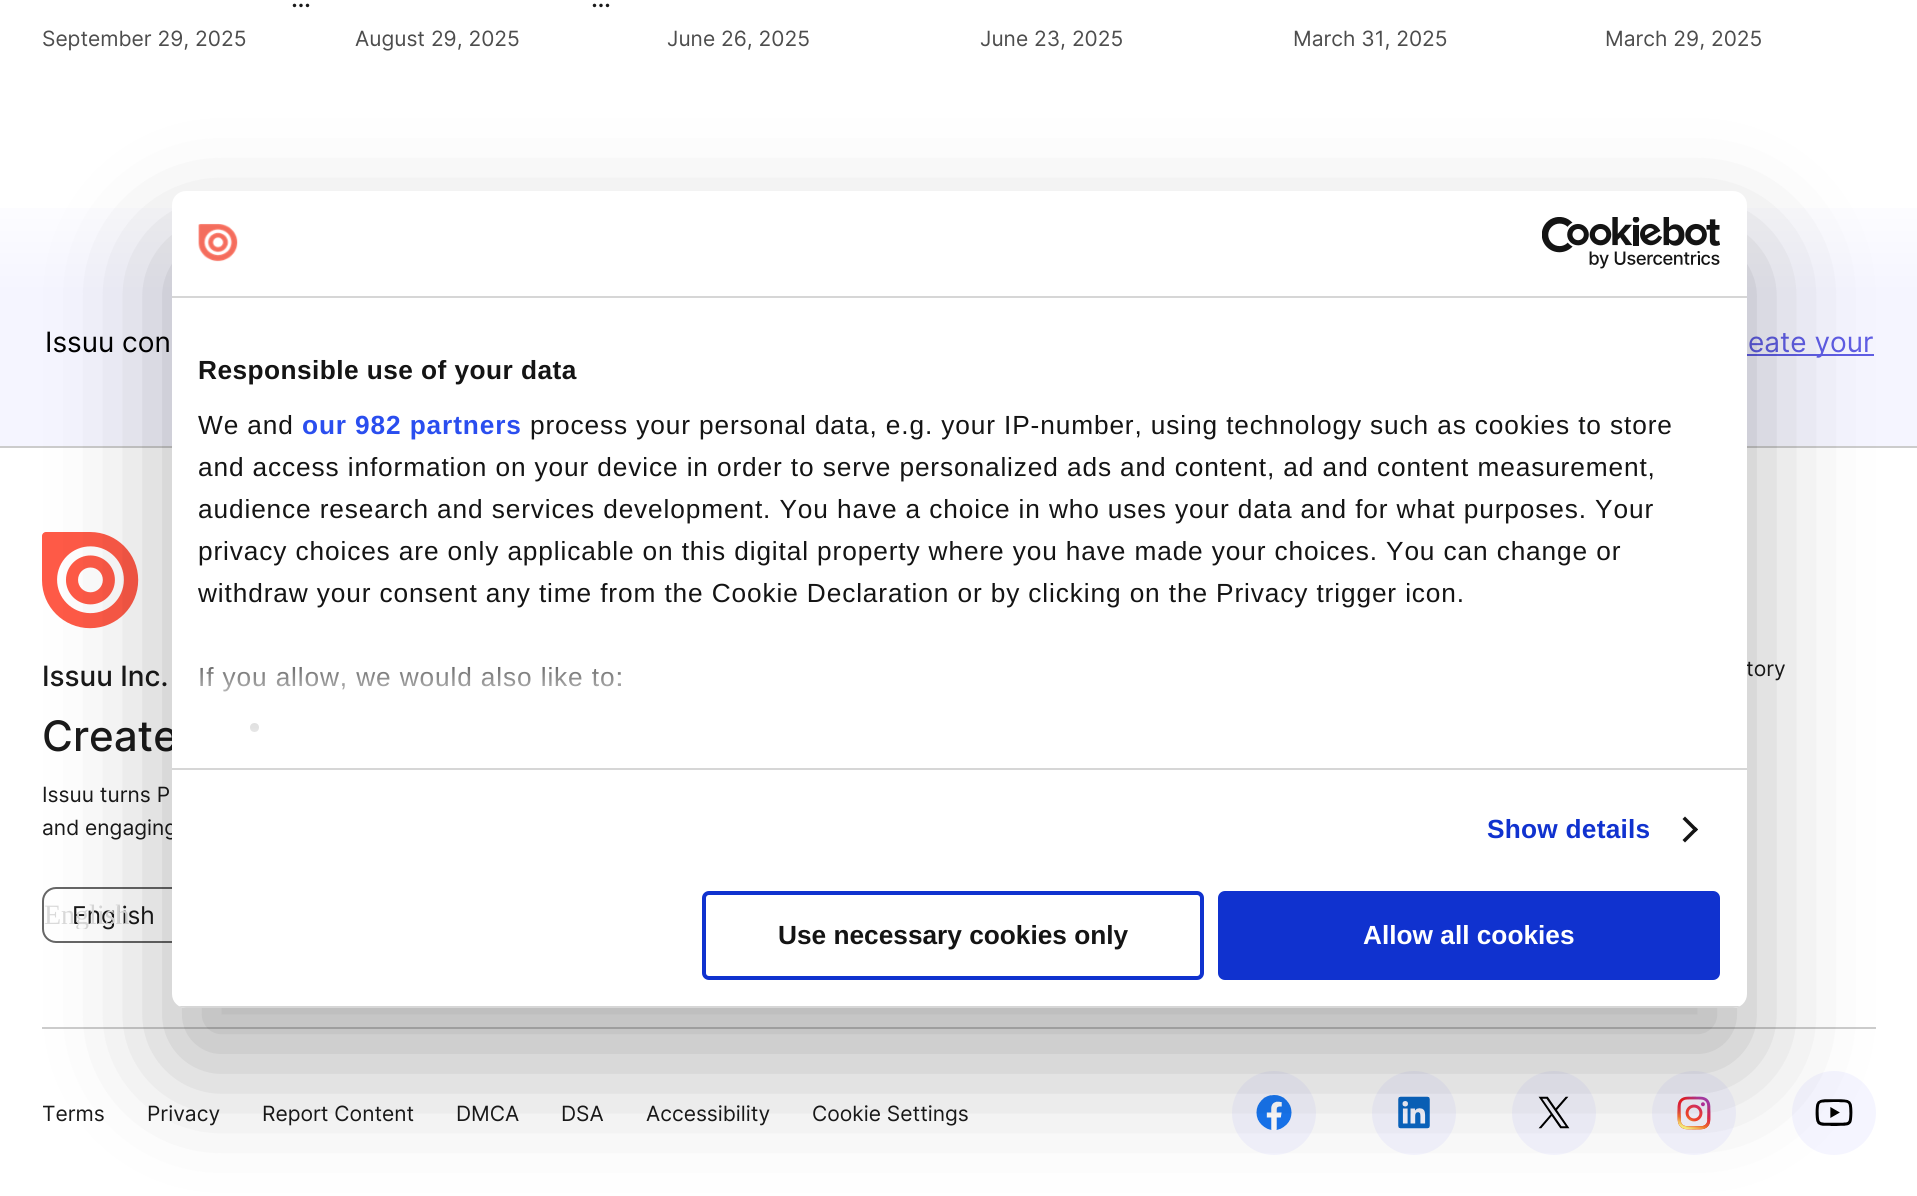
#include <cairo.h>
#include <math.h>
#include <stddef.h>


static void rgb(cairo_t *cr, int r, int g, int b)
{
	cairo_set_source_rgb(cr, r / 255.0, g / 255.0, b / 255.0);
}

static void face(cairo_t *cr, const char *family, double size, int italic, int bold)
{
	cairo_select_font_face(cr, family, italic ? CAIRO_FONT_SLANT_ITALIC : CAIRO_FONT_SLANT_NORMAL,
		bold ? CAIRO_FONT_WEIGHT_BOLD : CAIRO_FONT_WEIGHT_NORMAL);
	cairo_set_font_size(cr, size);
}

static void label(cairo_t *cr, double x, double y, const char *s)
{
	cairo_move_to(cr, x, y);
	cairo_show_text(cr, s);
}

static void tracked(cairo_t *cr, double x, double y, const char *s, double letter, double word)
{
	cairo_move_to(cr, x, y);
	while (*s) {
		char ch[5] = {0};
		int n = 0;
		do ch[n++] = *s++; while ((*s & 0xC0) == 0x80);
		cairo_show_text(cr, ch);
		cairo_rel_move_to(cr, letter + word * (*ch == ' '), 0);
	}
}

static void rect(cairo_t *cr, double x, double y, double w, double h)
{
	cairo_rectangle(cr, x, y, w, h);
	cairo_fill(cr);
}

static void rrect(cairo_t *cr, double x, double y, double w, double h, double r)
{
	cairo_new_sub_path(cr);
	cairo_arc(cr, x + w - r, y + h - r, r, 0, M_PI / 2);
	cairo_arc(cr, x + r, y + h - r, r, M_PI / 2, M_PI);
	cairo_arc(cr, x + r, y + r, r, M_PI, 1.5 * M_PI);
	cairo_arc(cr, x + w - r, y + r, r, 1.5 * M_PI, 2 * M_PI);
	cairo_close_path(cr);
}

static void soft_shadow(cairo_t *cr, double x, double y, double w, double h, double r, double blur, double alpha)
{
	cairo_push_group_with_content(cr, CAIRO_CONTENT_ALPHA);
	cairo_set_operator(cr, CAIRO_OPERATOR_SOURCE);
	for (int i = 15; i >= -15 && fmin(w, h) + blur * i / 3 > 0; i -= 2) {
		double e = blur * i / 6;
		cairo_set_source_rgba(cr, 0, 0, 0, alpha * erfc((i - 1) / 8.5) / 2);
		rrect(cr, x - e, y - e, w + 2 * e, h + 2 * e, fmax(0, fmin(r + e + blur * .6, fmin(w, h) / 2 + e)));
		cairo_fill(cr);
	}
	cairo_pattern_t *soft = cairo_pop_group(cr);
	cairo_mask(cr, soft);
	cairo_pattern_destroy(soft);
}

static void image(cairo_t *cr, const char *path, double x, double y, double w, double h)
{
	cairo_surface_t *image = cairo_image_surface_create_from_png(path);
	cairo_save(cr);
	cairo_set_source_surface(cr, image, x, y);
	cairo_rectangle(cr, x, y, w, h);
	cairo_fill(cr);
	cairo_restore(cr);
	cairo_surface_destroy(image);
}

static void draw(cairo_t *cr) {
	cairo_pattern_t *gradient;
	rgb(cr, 255, 255, 255);
	cairo_paint(cr);
	face(cr, "Inter Medium", 24.5, 0, 0);
	rgb(cr, 26, 26, 26);
	label(cr, 291, 7, "…");
	face(cr, "Inter", 21, 0, 0);
	rgb(cr, 77, 77, 77);
	label(cr, 42, 46, "September 29, 2025");
	face(cr, "Inter Medium", 24.5, 0, 0);
	rgb(cr, 26, 26, 26);
	label(cr, 591, 7, "…");
	face(cr, "Inter", 21, 0, 0);
	rgb(cr, 77, 77, 77);
	label(cr, 355, 46, "August 29, 2025");
	label(cr, 667, 46, "June 26, 2025");
	label(cr, 980, 46, "June 23, 2025");
	label(cr, 1293, 46, "March 31, 2025");
	label(cr, 1605, 46, "March 29, 2025");
	gradient = cairo_pattern_create_linear(959, 180, 959, 292);
	cairo_pattern_add_color_stop_rgba(gradient, 0, 1, 1, 1, 1);
	cairo_pattern_add_color_stop_rgba(gradient, 1, 0.961, 0.961, 1, 1);
	cairo_set_source(cr, gradient);
	cairo_pattern_destroy(gradient);
	rect(cr, 0, 208, 1917, 84);
	rgb(cr, 245, 245, 255);
	rect(cr, 0, 292, 1917, 154);
	face(cr, "Inter", 28, 0, 0);
	rgb(cr, 0, 0, 0);
	label(cr, 45, 352, "Issuu con");
	rgb(cr, 95, 93, 228);
	rect(cr, 1747, 354, 127, 2);
	label(cr, 1748, 352, "eate your");
	rgb(cr, 204, 204, 204);
	rect(cr, 0, 446, 1917, 2);
	image(cr, "image0.png", 42, 532, 97, 97);
	face(cr, "Inter Medium", 28, 0, 0);
	rgb(cr, 26, 26, 26);
	label(cr, 42, 686, "Issuu Inc.");
	face(cr, "Inter Medium", 42, 0, 0);
	label(cr, 42, 751, "Create");
	face(cr, "Inter", 21, 0, 0);
	label(cr, 42, 802, "Issuu turns P");
	label(cr, 42, 835, "and engaging");
	label(cr, 1746, 676, "tory");
	rrect(cr, 43, 888, 269, 54, 13);
	rgb(cr, 102, 102, 102);
	cairo_stroke(cr);
	face(cr, "Inter", 24.5, 0, 0);
	rgb(cr, 26, 26, 26);
	label(cr, 72, 924, "English");
	cairo_save(cr);
	cairo_rectangle(cr, 44, 900, 268, 29);
	cairo_clip(cr);
	face(cr, "Liberation Serif", 28, 0, 0);
	rgb(cr, 219, 219, 219);
	label(cr, 44, 924, "English");
	cairo_restore(cr);
	rgb(cr, 204, 204, 204);
	rect(cr, 42, 1027, 1834, 2);
	face(cr, "Inter", 21, 0, 0);
	rgb(cr, 26, 26, 26);
	label(cr, 42, 1121, "Terms");
	label(cr, 147, 1121, "Privacy");
	label(cr, 262, 1121, "Report Content");
	label(cr, 456, 1121, "DMCA");
	label(cr, 561, 1121, "DSA");
	label(cr, 646, 1121, "Accessibility");
	label(cr, 812, 1121, "Cookie Settings");
	rgb(cr, 245, 245, 255);
	cairo_new_path(cr);
	cairo_arc(cr, 1274, 1113, 42, 0, 2 * M_PI);
	cairo_fill(cr);
	image(cr, "image1.png", 1256, 1095, 36, 35);
	cairo_arc(cr, 1414, 1113, 42, 0, 2 * M_PI);
	cairo_fill(cr);
	image(cr, "image2.png", 1398, 1096, 32, 33);
	cairo_arc(cr, 1554, 1113, 42, 0, 2 * M_PI);
	cairo_fill(cr);
	image(cr, "image3.png", 1538, 1096, 32, 33);
	cairo_arc(cr, 1694, 1113, 42, 0, 2 * M_PI);
	cairo_fill(cr);
	image(cr, "image4.png", 1677, 1096, 34, 34);
	cairo_arc(cr, 1834, 1113, 42, 0, 2 * M_PI);
	cairo_fill(cr);
	image(cr, "image5.png", 1815, 1099, 38, 27);
	rgb(cr, 0, 0, 0);
	soft_shadow(cr, 172, 247, 1575, 817, 14, 59.5, 0.3);
	rgb(cr, 255, 255, 255);
	rrect(cr, 172, 191, 1575, 817, 14);
	cairo_fill(cr);
	rgb(cr, 214, 214, 214);
	rect(cr, 172, 296, 1575, 2);
	image(cr, "image6.png", 198, 223, 40, 39);
	image(cr, "image7.png", 1542, 217, 178, 52);
	rect(cr, 172, 768, 1575, 2);
	face(cr, "Liberation Sans", 26.25, 0, 1);
	rgb(cr, 20, 20, 20);
	tracked(cr, 198, 379, "Responsible use of your data", 0.45, 0);
	face(cr, "Liberation Sans", 26.25, 0, 0);
	tracked(cr, 198, 434, "We and", 0.88, 0);
	face(cr, "Liberation Sans", 26.25, 0, 1);
	rgb(cr, 42, 78, 239);
	tracked(cr, 302, 434, "our 982 partners", 0.88, 0);
	face(cr, "Liberation Sans", 26.25, 0, 0);
	rgb(cr, 20, 20, 20);
	tracked(cr, 530, 434, "process your personal data, e.g. your IP-number, using technology such as cookies to store", 0.88, 0);
	tracked(cr, 198, 476, "and access information on your device in order to serve personalized ads and content, ad and content measurement,", 0.88, 0);
	tracked(cr, 198, 518, "audience research and services development. You have a choice in who uses your data and for what purposes. Your", 0.88, 0);
	tracked(cr, 198, 560, "privacy choices are only applicable on this digital property where you have made your choices. You can change or", 0.88, 0);
	tracked(cr, 198, 602, "withdraw your consent any time from the Cookie Declaration or by clicking on the Privacy trigger icon.", 0.88, 0);
	tracked(cr, 198, 686, "If you allow, we would also like to:", 0.88, 0);
	cairo_new_path(cr);
	cairo_arc(cr, 254.5, 727.5, 4.5, 0, 2 * M_PI);
	cairo_fill(cr);
	gradient = cairo_pattern_create_linear(948, 767, 948, 636);
	cairo_pattern_add_color_stop_rgba(gradient, 0, 1, 1, 1, 1);
	cairo_pattern_add_color_stop_rgba(gradient, 0.5, 1, 1, 1, 0.8);
	cairo_pattern_add_color_stop_rgba(gradient, 1, 1, 1, 1, 0);
	cairo_set_source(cr, gradient);
	cairo_pattern_destroy(gradient);
	rect(cr, 200, 667, 420, 65);
	face(cr, "Liberation Sans", 26.25, 0, 1);
	rgb(cr, 16, 50, 207);
	tracked(cr, 1487, 838, "Show details", 0.25, 0);
	rgb(cr, 20, 20, 20);
	cairo_new_path(cr);
	cairo_move_to(cr, 1685, 816.5);
	cairo_line_to(cr, 1698, 829.5);
	cairo_line_to(cr, 1695.5, 832);
	cairo_line_to(cr, 1682.5, 819);
	cairo_close_path(cr);
	cairo_fill(cr);
	cairo_new_path(cr);
	cairo_move_to(cr, 1695.5, 827);
	cairo_line_to(cr, 1698, 829.5);
	cairo_line_to(cr, 1685, 842.5);
	cairo_line_to(cr, 1682.5, 840);
	cairo_close_path(cr);
	cairo_fill(cr);
	cairo_save(cr);
	rrect(cr, 172, 191, 1575, 817, 14);
	cairo_clip(cr);
	rgb(cr, 214, 214, 214);
	rect(cr, 172, 1006, 1575, 2);
	cairo_restore(cr);
	rrect(cr, 704, 893, 498, 85, 5);
	rgb(cr, 16, 50, 207);
	cairo_set_line_width(cr, 4);
	cairo_stroke(cr);
	rgb(cr, 20, 20, 20);
	label(cr, 778, 944, "Use necessary cookies only");
	rgb(cr, 16, 50, 207);
	rrect(cr, 1220, 893, 498, 85, 5);
	cairo_fill_preserve(cr);
	cairo_stroke(cr);
	rgb(cr, 255, 255, 255);
	label(cr, 1363, 944, "Allow all cookies");
}

int main(void) {
	cairo_surface_t *surface = cairo_image_surface_create(CAIRO_FORMAT_RGB24, 1917, 1196);
	cairo_t *cr = cairo_create(surface);
	cairo_font_options_t *options = cairo_font_options_create();
	cairo_font_options_set_hint_metrics(options, CAIRO_HINT_METRICS_OFF);
	cairo_font_options_set_hint_style(options, CAIRO_HINT_STYLE_NONE);
	cairo_set_font_options(cr, options);
	cairo_set_miter_limit(cr, 4);
	draw(cr);
	cairo_surface_write_to_png(surface, "render.png");
	cairo_font_options_destroy(options);
	cairo_destroy(cr);
	cairo_surface_destroy(surface);
	return 0;
}
